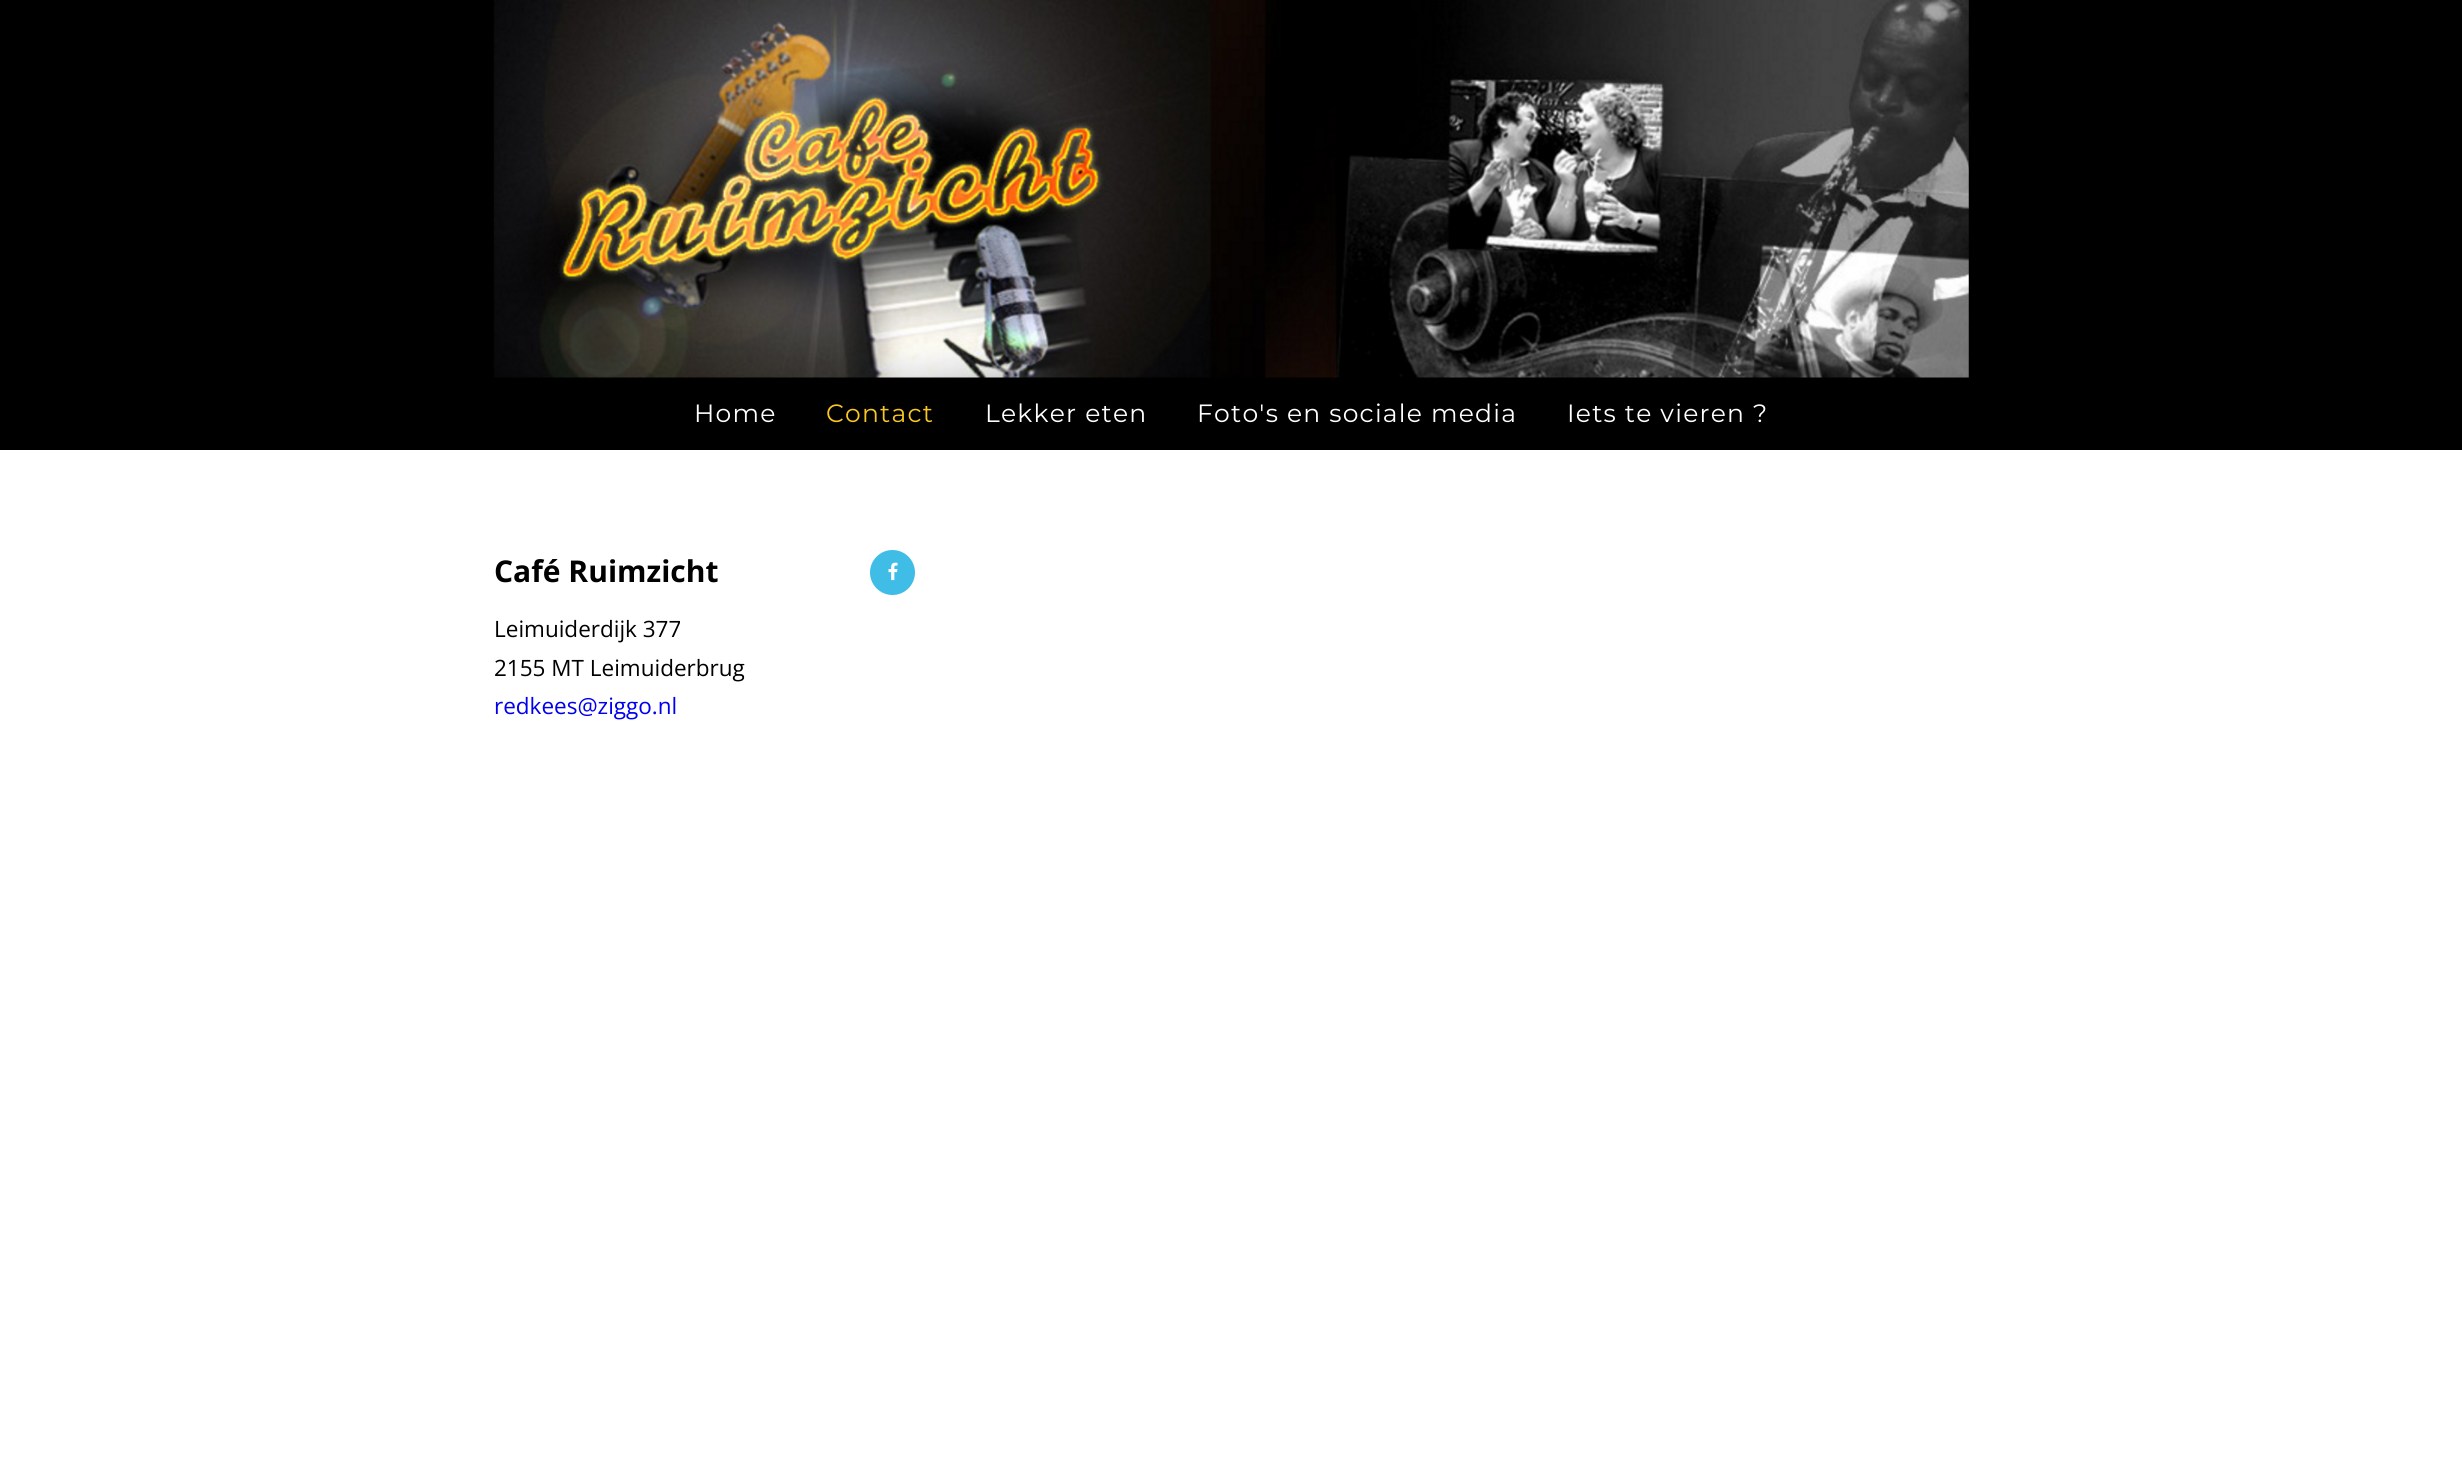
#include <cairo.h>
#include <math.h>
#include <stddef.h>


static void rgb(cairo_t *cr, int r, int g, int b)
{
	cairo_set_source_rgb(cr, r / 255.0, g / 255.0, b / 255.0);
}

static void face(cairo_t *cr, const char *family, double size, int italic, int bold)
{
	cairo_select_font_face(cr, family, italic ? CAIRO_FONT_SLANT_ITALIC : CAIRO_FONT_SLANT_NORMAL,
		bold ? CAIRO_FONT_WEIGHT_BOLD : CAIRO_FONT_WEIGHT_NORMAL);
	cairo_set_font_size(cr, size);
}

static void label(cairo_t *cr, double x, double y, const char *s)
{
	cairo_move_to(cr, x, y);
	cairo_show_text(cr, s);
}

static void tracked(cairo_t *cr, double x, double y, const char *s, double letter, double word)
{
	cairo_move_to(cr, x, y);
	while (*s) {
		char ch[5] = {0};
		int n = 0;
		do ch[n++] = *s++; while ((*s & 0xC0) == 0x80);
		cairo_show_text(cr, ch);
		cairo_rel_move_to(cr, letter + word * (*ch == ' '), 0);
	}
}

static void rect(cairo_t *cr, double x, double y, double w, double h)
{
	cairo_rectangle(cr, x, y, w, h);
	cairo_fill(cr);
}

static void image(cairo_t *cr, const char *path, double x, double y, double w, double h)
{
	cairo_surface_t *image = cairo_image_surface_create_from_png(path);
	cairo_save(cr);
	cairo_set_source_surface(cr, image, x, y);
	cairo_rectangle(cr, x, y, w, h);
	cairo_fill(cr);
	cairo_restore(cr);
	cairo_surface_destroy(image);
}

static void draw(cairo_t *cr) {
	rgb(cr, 255, 255, 255);
	cairo_paint(cr);
	rgb(cr, 0, 0, 0);
	rect(cr, 0, 0, 2462, 450);
	image(cr, "image0.png", 493, 0, 1476, 378);
	face(cr, "Montserrat", 25, 0, 0);
	rgb(cr, 255, 255, 255);
	tracked(cr, 694, 422, "Home", 1.25, 0);
	rgb(cr, 249, 199, 36);
	tracked(cr, 826, 422, "Contact", 1.25, 0);
	rgb(cr, 255, 255, 255);
	tracked(cr, 985, 422, "Lekker eten", 1.25, 0);
	tracked(cr, 1197, 422, "Foto's en sociale media", 1.25, 0);
	tracked(cr, 1567, 422, "Iets te vieren ?", 1.25, 0);
	face(cr, "Open Sans", 30, 0, 1);
	rgb(cr, 0, 0, 0);
	label(cr, 494, 582, "Café Ruimzicht");
	face(cr, "Open Sans", 22.5, 0, 0);
	label(cr, 494, 637, "Leimuiderdijk 377");
	label(cr, 494, 676, "2155 MT Leimuiderbrug");
	rgb(cr, 0, 0, 238);
	label(cr, 494, 714, "redkees@ziggo.nl");
	rgb(cr, 64, 189, 230);
	cairo_new_path(cr);
	cairo_arc(cr, 892.5, 572.5, 22.5, 0, 2 * M_PI);
	cairo_fill(cr);
	image(cr, "image1.png", 888, 562, 10, 19);
}

int main(void) {
	cairo_surface_t *surface = cairo_image_surface_create(CAIRO_FORMAT_RGB24, 2462, 1479);
	cairo_t *cr = cairo_create(surface);
	cairo_font_options_t *options = cairo_font_options_create();
	cairo_font_options_set_hint_metrics(options, CAIRO_HINT_METRICS_OFF);
	cairo_font_options_set_hint_style(options, CAIRO_HINT_STYLE_NONE);
	cairo_set_font_options(cr, options);
	cairo_set_miter_limit(cr, 4);
	draw(cr);
	cairo_surface_write_to_png(surface, "render.png");
	cairo_font_options_destroy(options);
	cairo_destroy(cr);
	cairo_surface_destroy(surface);
	return 0;
}
